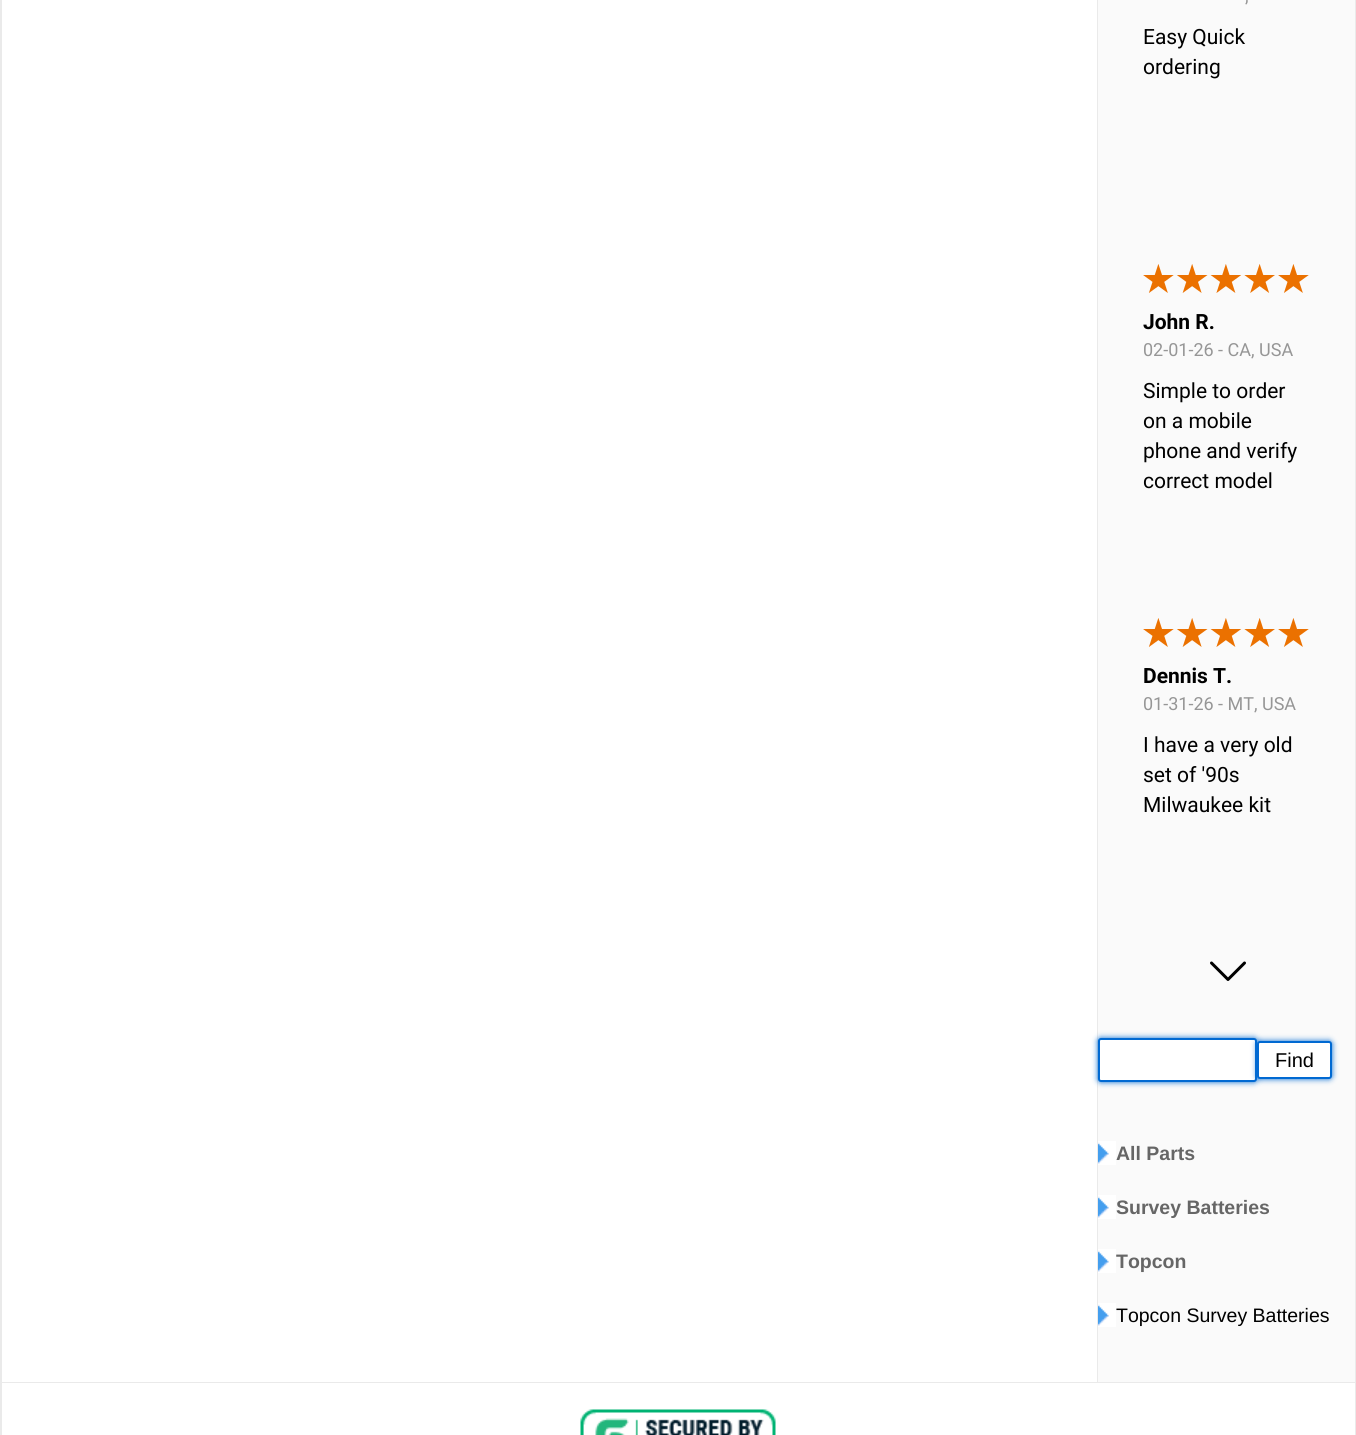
#include <cairo.h>
#include <math.h>
#include <stddef.h>


static void rgb(cairo_t *cr, int r, int g, int b)
{
	cairo_set_source_rgb(cr, r / 255.0, g / 255.0, b / 255.0);
}

static void face(cairo_t *cr, const char *family, double size, int italic, int bold)
{
	cairo_select_font_face(cr, family, italic ? CAIRO_FONT_SLANT_ITALIC : CAIRO_FONT_SLANT_NORMAL,
		bold ? CAIRO_FONT_WEIGHT_BOLD : CAIRO_FONT_WEIGHT_NORMAL);
	cairo_set_font_size(cr, size);
}

static void label(cairo_t *cr, double x, double y, const char *s)
{
	cairo_move_to(cr, x, y);
	cairo_show_text(cr, s);
}

static void rect(cairo_t *cr, double x, double y, double w, double h)
{
	cairo_rectangle(cr, x, y, w, h);
	cairo_fill(cr);
}

static void rrect(cairo_t *cr, double x, double y, double w, double h, double r)
{
	cairo_new_sub_path(cr);
	cairo_arc(cr, x + w - r, y + h - r, r, 0, M_PI / 2);
	cairo_arc(cr, x + r, y + h - r, r, M_PI / 2, M_PI);
	cairo_arc(cr, x + r, y + r, r, M_PI, 1.5 * M_PI);
	cairo_arc(cr, x + w - r, y + r, r, 1.5 * M_PI, 2 * M_PI);
	cairo_close_path(cr);
}

static void soft_shadow(cairo_t *cr, double x, double y, double w, double h, double r, double blur, double alpha)
{
	cairo_push_group_with_content(cr, CAIRO_CONTENT_ALPHA);
	cairo_set_operator(cr, CAIRO_OPERATOR_SOURCE);
	for (int i = 15; i >= -15 && fmin(w, h) + blur * i / 3 > 0; i -= 2) {
		double e = blur * i / 6;
		cairo_set_source_rgba(cr, 0, 0, 0, alpha * erfc((i - 1) / 8.5) / 2);
		rrect(cr, x - e, y - e, w + 2 * e, h + 2 * e, fmax(0, fmin(r + e + blur * .6, fmin(w, h) / 2 + e)));
		cairo_fill(cr);
	}
	cairo_pattern_t *soft = cairo_pop_group(cr);
	cairo_mask(cr, soft);
	cairo_pattern_destroy(soft);
}

static void image(cairo_t *cr, const char *path, double x, double y, double w, double h)
{
	cairo_surface_t *image = cairo_image_surface_create_from_png(path);
	cairo_save(cr);
	cairo_set_source_surface(cr, image, x, y);
	cairo_rectangle(cr, x, y, w, h);
	cairo_fill(cr);
	cairo_restore(cr);
	cairo_surface_destroy(image);
}

static void draw(cairo_t *cr) {
	rgb(cr, 234, 234, 234);
	cairo_paint(cr);
	rgb(cr, 255, 255, 255);
	rect(cr, 2, 0, 1095, 1382);
	rgb(cr, 250, 250, 250);
	rect(cr, 1098, 0, 257, 1382);
	face(cr, "Roboto", 18, 0, 0);
	rgb(cr, 150, 150, 150);
	label(cr, 1245, 2, ",");
	face(cr, "Roboto", 21, 0, 0);
	rgb(cr, 0, 0, 0);
	label(cr, 1143, 44, "Easy Quick");
	label(cr, 1143, 74, "ordering");
	image(cr, "image0.png", 1143, 264, 166, 29);
	face(cr, "Roboto", 21, 0, 1);
	label(cr, 1143, 329, "John R.");
	face(cr, "Roboto", 18, 0, 0);
	rgb(cr, 150, 150, 150);
	label(cr, 1143, 356, "02-01-26 - CA, USA");
	face(cr, "Roboto", 21, 0, 0);
	rgb(cr, 0, 0, 0);
	label(cr, 1143, 398, "Simple to order");
	label(cr, 1143, 428, "on a mobile");
	label(cr, 1143, 458, "phone and verify");
	label(cr, 1143, 488, "correct model");
	image(cr, "image0.png", 1143, 618, 166, 29);
	face(cr, "Roboto", 21, 0, 1);
	label(cr, 1143, 683, "Dennis T.");
	face(cr, "Roboto", 18, 0, 0);
	rgb(cr, 150, 150, 150);
	label(cr, 1143, 710, "01-31-26 - MT, USA");
	face(cr, "Roboto", 21, 0, 0);
	rgb(cr, 0, 0, 0);
	label(cr, 1143, 752, "I have a very old");
	label(cr, 1143, 782, "set of '90s");
	label(cr, 1143, 812, "Milwaukee kit");
	cairo_new_path(cr);
	cairo_move_to(cr, 1211.5, 963);
	cairo_line_to(cr, 1228, 979.5);
	cairo_line_to(cr, 1244.5, 963);
	cairo_set_line_width(cr, 3);
	cairo_set_line_cap(cr, CAIRO_LINE_CAP_ROUND);
	cairo_set_line_join(cr, CAIRO_LINE_JOIN_ROUND);
	cairo_stroke(cr);
	rgb(cr, 0, 105, 210);
	soft_shadow(cr, 1098, 1038, 159, 44, 3, 3, 1);
	rgb(cr, 255, 255, 255);
	rrect(cr, 1099, 1039, 157, 42, 2);
	cairo_fill_preserve(cr);
	rgb(cr, 0, 105, 210);
	cairo_set_line_width(cr, 2);
	cairo_set_line_cap(cr, CAIRO_LINE_CAP_BUTT);
	cairo_set_line_join(cr, CAIRO_LINE_JOIN_MITER);
	cairo_stroke(cr);
	rgb(cr, 0, 105, 210);
	soft_shadow(cr, 1257, 1041, 75, 38, 3, 3, 1);
	rgb(cr, 255, 255, 255);
	rrect(cr, 1258, 1042, 73, 36, 2);
	cairo_fill_preserve(cr);
	rgb(cr, 0, 105, 210);
	cairo_stroke(cr);
	face(cr, "Liberation Sans", 20, 0, 0);
	rgb(cr, 0, 0, 0);
	label(cr, 1275, 1067, "Find");
	image(cr, "image1.png", 1098, 1141, 18, 24);
	face(cr, "Liberation Sans", 19.5, 0, 1);
	rgb(cr, 102, 102, 102);
	label(cr, 1116, 1160, "All Parts");
	image(cr, "image1.png", 1098, 1195, 18, 24);
	label(cr, 1116, 1214, "Survey Batteries");
	image(cr, "image1.png", 1098, 1249, 18, 24);
	label(cr, 1116, 1268, "Topcon");
	image(cr, "image1.png", 1098, 1303, 18, 24);
	face(cr, "Liberation Sans", 19.5, 0, 0);
	rgb(cr, 0, 0, 0);
	label(cr, 1116, 1322, "Topcon Survey Batteries");
	rgb(cr, 255, 255, 255);
	rect(cr, 2, 1383, 1353, 52);
	image(cr, "image2.png", 580, 1409, 196, 26);
}

int main(void) {
	cairo_surface_t *surface = cairo_image_surface_create(CAIRO_FORMAT_RGB24, 1356, 1435);
	cairo_t *cr = cairo_create(surface);
	cairo_font_options_t *options = cairo_font_options_create();
	cairo_font_options_set_hint_metrics(options, CAIRO_HINT_METRICS_OFF);
	cairo_font_options_set_hint_style(options, CAIRO_HINT_STYLE_NONE);
	cairo_set_font_options(cr, options);
	cairo_set_miter_limit(cr, 4);
	draw(cr);
	cairo_surface_write_to_png(surface, "render.png");
	cairo_font_options_destroy(options);
	cairo_destroy(cr);
	cairo_surface_destroy(surface);
	return 0;
}
